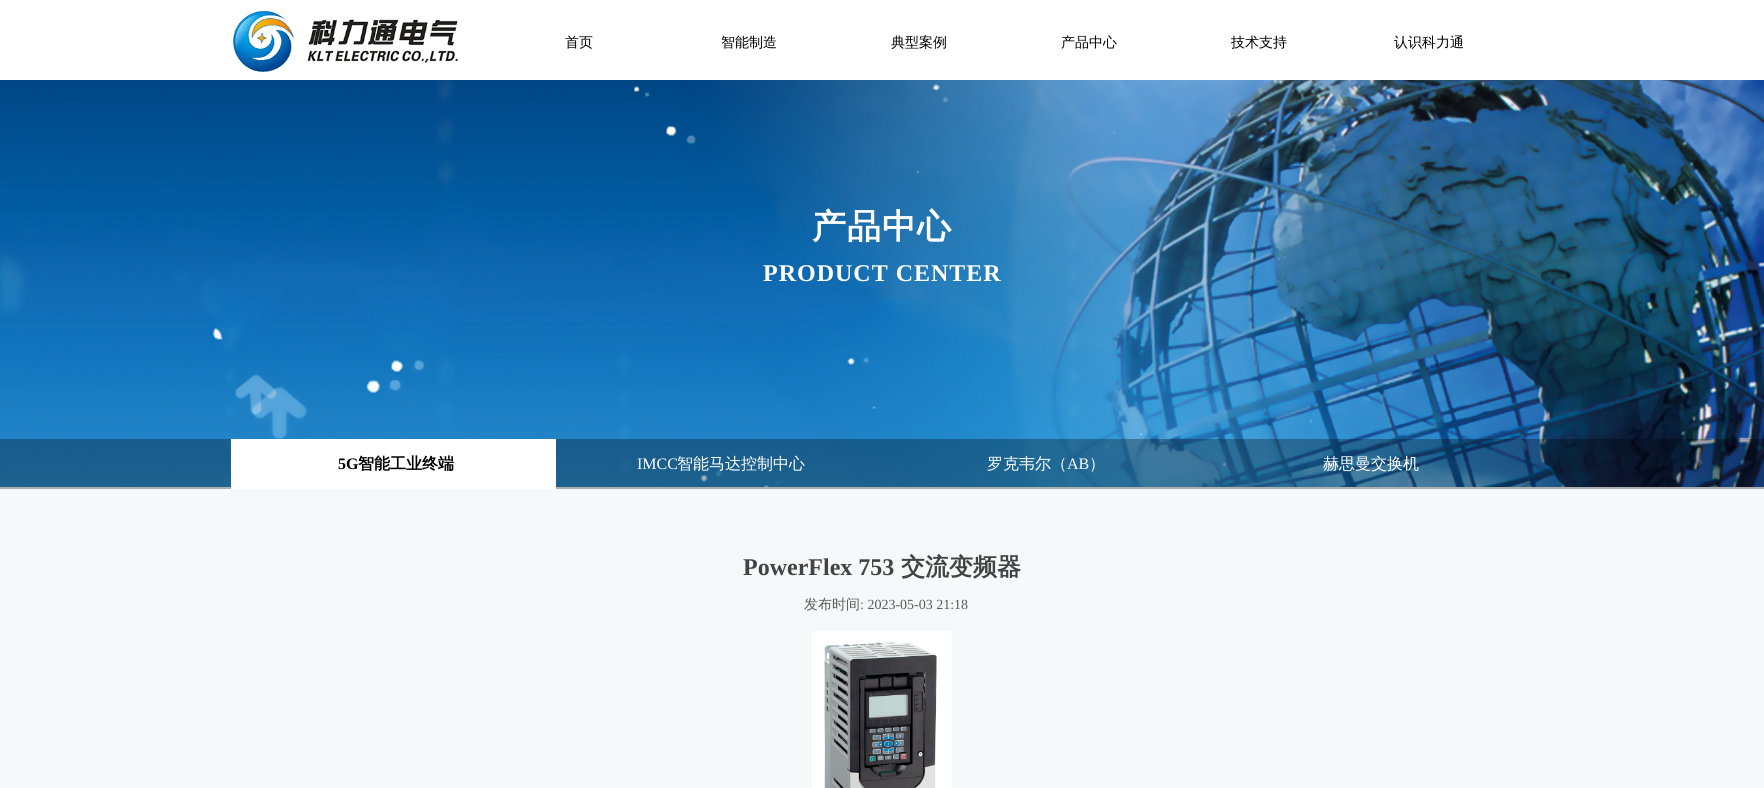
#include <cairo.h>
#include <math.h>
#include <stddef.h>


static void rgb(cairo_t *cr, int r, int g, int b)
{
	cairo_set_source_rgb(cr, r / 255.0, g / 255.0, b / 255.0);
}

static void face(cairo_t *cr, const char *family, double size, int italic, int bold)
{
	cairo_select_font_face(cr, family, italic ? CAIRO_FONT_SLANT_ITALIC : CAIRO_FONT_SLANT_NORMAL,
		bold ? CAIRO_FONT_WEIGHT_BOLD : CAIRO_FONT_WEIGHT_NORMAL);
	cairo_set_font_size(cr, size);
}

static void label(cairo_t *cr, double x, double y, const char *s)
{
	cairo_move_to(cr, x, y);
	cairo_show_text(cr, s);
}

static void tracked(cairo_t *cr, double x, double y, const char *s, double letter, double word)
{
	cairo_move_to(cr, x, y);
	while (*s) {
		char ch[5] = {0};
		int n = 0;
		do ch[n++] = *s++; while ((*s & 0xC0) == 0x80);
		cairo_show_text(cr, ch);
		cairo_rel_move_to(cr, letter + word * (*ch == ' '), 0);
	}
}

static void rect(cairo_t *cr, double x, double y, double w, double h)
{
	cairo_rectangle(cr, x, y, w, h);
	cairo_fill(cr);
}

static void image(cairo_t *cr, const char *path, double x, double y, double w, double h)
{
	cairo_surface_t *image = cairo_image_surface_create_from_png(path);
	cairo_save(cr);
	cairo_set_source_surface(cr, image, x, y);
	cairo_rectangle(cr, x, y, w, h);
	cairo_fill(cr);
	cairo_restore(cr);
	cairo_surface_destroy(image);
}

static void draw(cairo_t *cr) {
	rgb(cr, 246, 249, 250);
	cairo_paint(cr);
	rgb(cr, 255, 255, 255);
	rect(cr, 0, 0, 1764, 80);
	image(cr, "image0.png", 232, 11, 226, 62);
	face(cr, "WenQuanYi Zen Hei Medium", 14, 0, 0);
	rgb(cr, 0, 0, 0);
	label(cr, 565, 47, "首页");
	label(cr, 721, 47, "智能制造");
	label(cr, 891, 47, "典型案例");
	label(cr, 1061, 47, "产品中心");
	label(cr, 1231, 47, "技术支持");
	label(cr, 1394, 47, "认识科力通");
	image(cr, "image1.png", 0, 80, 1764, 407);
	face(cr, "WenQuanYi Zen Hei", 34, 0, 1);
	rgb(cr, 255, 255, 255);
	tracked(cr, 812, 238, "产品中心", 1, 0);
	face(cr, "Liberation Serif", 24, 0, 1);
	tracked(cr, 763, 281, "PRODUCT CENTER", 1, 0);
	cairo_set_source_rgba(cr, 0, 0, 0, 0.3);
	rect(cr, 0, 439, 1764, 50);
	rgb(cr, 255, 255, 255);
	rect(cr, 231, 439, 325, 50);
	face(cr, "Liberation Serif", 16, 0, 1);
	rgb(cr, 0, 0, 0);
	label(cr, 338, 469, "5G");
	face(cr, "WenQuanYi Zen Hei", 16, 0, 1);
	label(cr, 358, 469, "智能工业终端");
	face(cr, "Liberation Serif", 16, 0, 0);
	rgb(cr, 255, 255, 255);
	label(cr, 637, 469, "IMCC");
	face(cr, "WenQuanYi Zen Hei Medium", 16, 0, 0);
	label(cr, 677, 469, "智能马达控制中心");
	label(cr, 987, 469, "罗克韦尔（");
	face(cr, "Liberation Serif", 16, 0, 0);
	label(cr, 1067, 469, "AB");
	face(cr, "WenQuanYi Zen Hei Medium", 16, 0, 0);
	label(cr, 1089, 469, "）");
	label(cr, 1323, 469, "赫思曼交换机");
	face(cr, "Liberation Serif", 24, 0, 1);
	rgb(cr, 67, 67, 67);
	label(cr, 743, 575, "PowerFlex 753");
	face(cr, "WenQuanYi Zen Hei", 24, 0, 1);
	label(cr, 901, 575, "交流变频器");
	face(cr, "WenQuanYi Zen Hei Medium", 14, 0, 0);
	rgb(cr, 90, 90, 90);
	label(cr, 804, 609, "发布时间");
	face(cr, "Liberation Serif", 14, 0, 0);
	label(cr, 860, 609, ": 2023-05-03 21:18");
	image(cr, "image2.png", 812, 631, 140, 157);
}

int main(void) {
	cairo_surface_t *surface = cairo_image_surface_create(CAIRO_FORMAT_RGB24, 1764, 788);
	cairo_t *cr = cairo_create(surface);
	cairo_font_options_t *options = cairo_font_options_create();
	cairo_font_options_set_hint_metrics(options, CAIRO_HINT_METRICS_OFF);
	cairo_font_options_set_hint_style(options, CAIRO_HINT_STYLE_NONE);
	cairo_set_font_options(cr, options);
	cairo_set_miter_limit(cr, 4);
	draw(cr);
	cairo_surface_write_to_png(surface, "render.png");
	cairo_font_options_destroy(options);
	cairo_destroy(cr);
	cairo_surface_destroy(surface);
	return 0;
}
